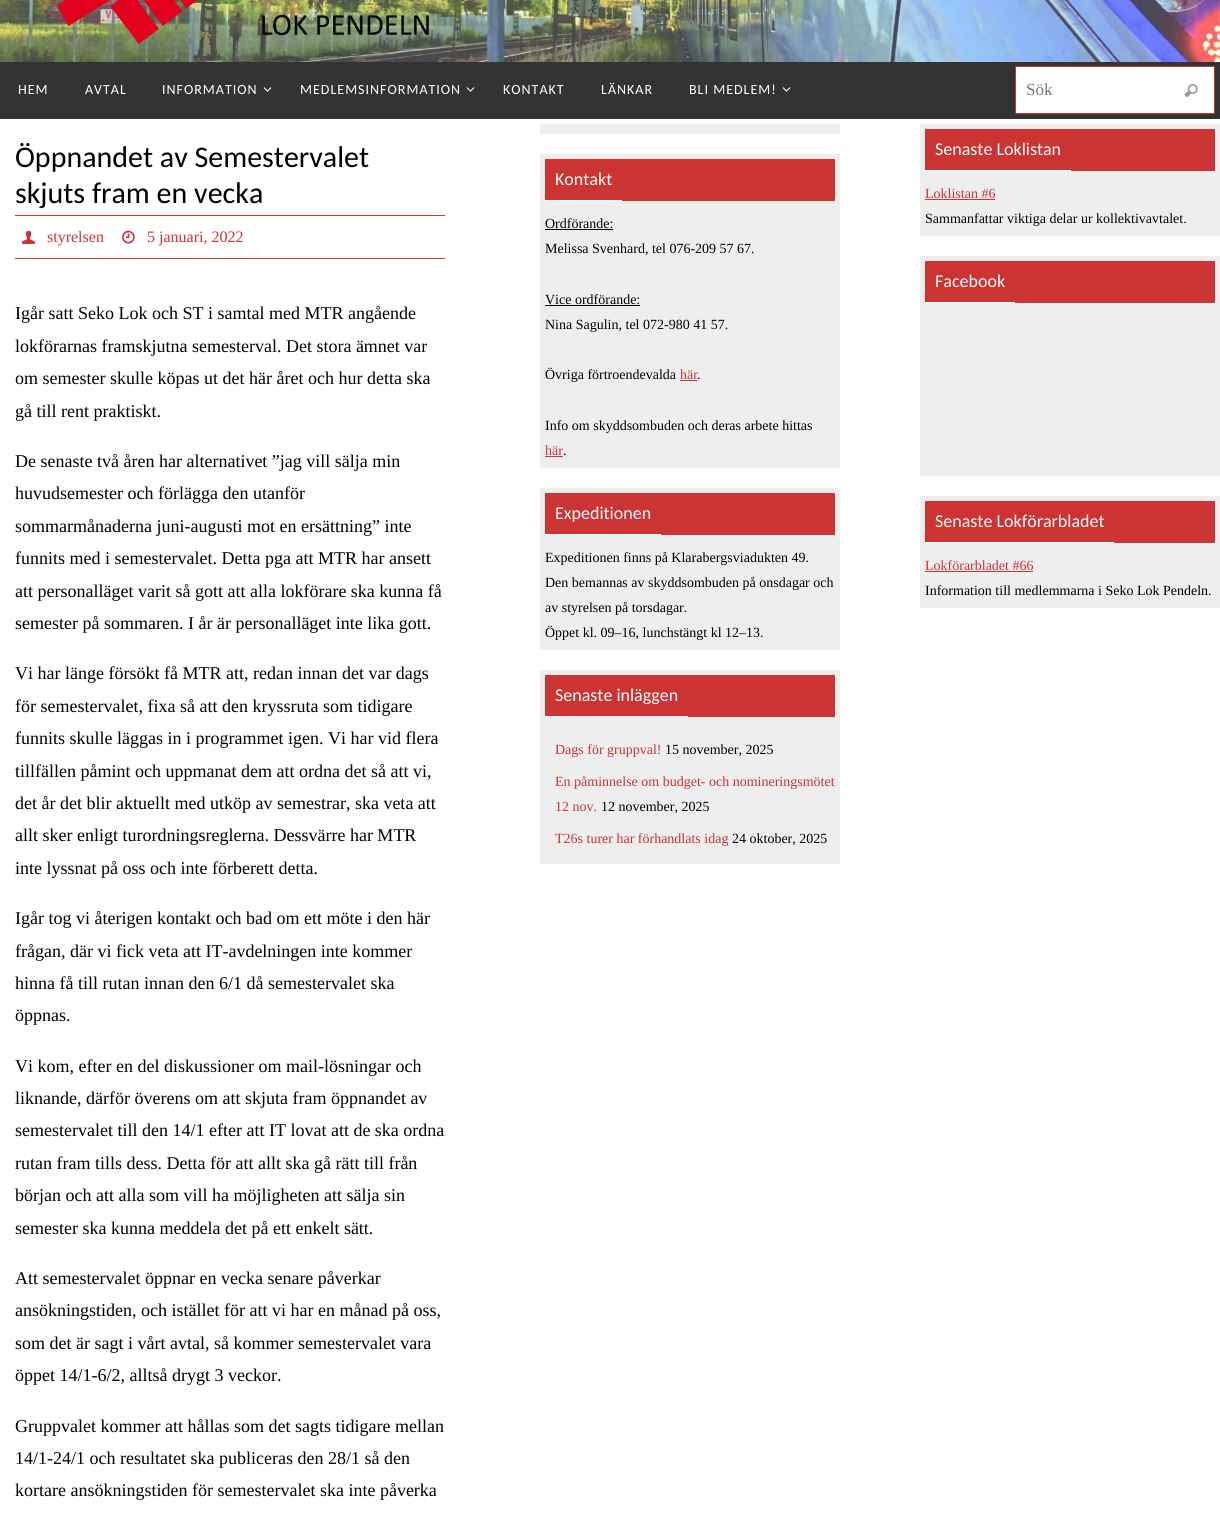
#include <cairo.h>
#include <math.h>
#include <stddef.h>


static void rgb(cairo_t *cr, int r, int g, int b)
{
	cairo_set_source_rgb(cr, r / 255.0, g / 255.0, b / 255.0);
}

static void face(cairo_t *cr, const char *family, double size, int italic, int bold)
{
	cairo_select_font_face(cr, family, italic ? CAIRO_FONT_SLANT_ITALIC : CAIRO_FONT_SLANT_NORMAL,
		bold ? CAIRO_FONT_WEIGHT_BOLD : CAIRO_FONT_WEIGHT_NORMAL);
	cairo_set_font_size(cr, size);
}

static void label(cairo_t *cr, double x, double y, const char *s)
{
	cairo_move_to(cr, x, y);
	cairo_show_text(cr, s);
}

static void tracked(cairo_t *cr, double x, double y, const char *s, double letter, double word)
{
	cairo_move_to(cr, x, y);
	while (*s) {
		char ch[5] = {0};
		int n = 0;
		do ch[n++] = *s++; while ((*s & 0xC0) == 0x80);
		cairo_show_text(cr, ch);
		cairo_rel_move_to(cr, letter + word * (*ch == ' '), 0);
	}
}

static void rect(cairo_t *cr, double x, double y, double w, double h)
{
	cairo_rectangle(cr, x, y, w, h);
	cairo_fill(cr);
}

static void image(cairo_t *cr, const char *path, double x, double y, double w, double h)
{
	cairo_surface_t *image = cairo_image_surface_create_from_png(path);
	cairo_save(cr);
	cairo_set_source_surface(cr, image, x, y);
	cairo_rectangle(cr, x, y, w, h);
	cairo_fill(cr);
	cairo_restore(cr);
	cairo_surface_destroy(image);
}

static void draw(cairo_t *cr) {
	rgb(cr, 255, 255, 255);
	cairo_paint(cr);
	image(cr, "image0.png", 0, 0, 1220, 62);
	rgb(cr, 51, 51, 51);
	rect(cr, 0, 62, 1220, 57);
	face(cr, "Carlito", 14, 0, 0);
	rgb(cr, 255, 255, 255);
	tracked(cr, 18, 94, "HEM", 1, 0);
	tracked(cr, 85, 94, "AVTAL", 1, 0);
	tracked(cr, 162, 94, "INFORMATION", 1, 0);
	image(cr, "image1.png", 263, 87, 9, 5);
	tracked(cr, 300, 94, "MEDLEMSINFORMATION", 1, 0);
	image(cr, "image1.png", 466, 87, 9, 5);
	tracked(cr, 503, 94, "KONTAKT", 1, 0);
	tracked(cr, 601, 94, "LÄNKAR", 1, 0);
	tracked(cr, 689, 94, "BLI MEDLEM!", 1, 0);
	image(cr, "image1.png", 782, 87, 9, 5);
	cairo_rectangle(cr, 1015.5, 66.5, 199, 47);
	cairo_fill_preserve(cr);
	rgb(cr, 204, 51, 51);
	cairo_set_line_width(cr, 1);
	cairo_stroke(cr);
	face(cr, "Liberation Serif", 17, 0, 0);
	rgb(cr, 117, 117, 117);
	label(cr, 1026, 95, "Sök");
	image(cr, "image2.png", 1184, 84, 14, 14);
	face(cr, "Carlito", 30, 0, 0);
	rgb(cr, 0, 0, 0);
	label(cr, 15, 167, "Öppnandet av Semestervalet");
	label(cr, 15, 203, "skjuts fram en vecka");
	rgb(cr, 204, 51, 51);
	rect(cr, 15, 215, 430, 1);
	rect(cr, 15, 258, 430, 1);
	image(cr, "image3.png", 22, 230, 13, 14);
	face(cr, "Liberation Serif", 16, 0, 0);
	label(cr, 47, 242, "styrelsen");
	image(cr, "image4.png", 122, 230, 13, 14);
	label(cr, 147, 242, "5 januari, 2022");
	face(cr, "Liberation Serif", 18, 0, 0);
	rgb(cr, 0, 0, 0);
	label(cr, 15, 319, "Igår satt Seko Lok och ST i samtal med MTR angående");
	label(cr, 15, 352, "lokförarnas framskjutna semesterval. Det stora ämnet var");
	label(cr, 15, 384, "om semester skulle köpas ut det här året och hur detta ska");
	label(cr, 15, 417, "gå till rent praktiskt.");
	label(cr, 15, 467, "De senaste två åren har alternativet ”jag vill sälja min");
	label(cr, 15, 499, "huvudsemester och förlägga den utanför");
	label(cr, 15, 532, "sommarmånaderna juni-augusti mot en ersättning” inte");
	label(cr, 15, 564, "funnits med i semestervalet. Detta pga att MTR har ansett");
	label(cr, 15, 597, "att personalläget varit så gott att alla lokförare ska kunna få");
	label(cr, 15, 629, "semester på sommaren. I år är personalläget inte lika gott.");
	label(cr, 15, 679, "Vi har länge försökt få MTR att, redan innan det var dags");
	label(cr, 15, 712, "för semestervalet, fixa så att den kryssruta som tidigare");
	label(cr, 15, 744, "funnits skulle läggas in i programmet igen. Vi har vid flera");
	label(cr, 15, 777, "tillfällen påmint och uppmanat dem att ordna det så att vi,");
	label(cr, 15, 809, "det år det blir aktuellt med utköp av semestrar, ska veta att");
	label(cr, 15, 841, "allt sker enligt turordningsreglerna. Dessvärre har MTR");
	label(cr, 15, 874, "inte lyssnat på oss och inte förberett detta.");
	label(cr, 15, 924, "Igår tog vi återigen kontakt och bad om ett möte i den här");
	label(cr, 15, 957, "frågan, där vi fick veta att IT-avdelningen inte kommer");
	label(cr, 15, 989, "hinna få till rutan innan den 6/1 då semestervalet ska");
	label(cr, 15, 1021, "öppnas.");
	label(cr, 15, 1072, "Vi kom, efter en del diskussioner om mail-lösningar och");
	label(cr, 15, 1104, "liknande, därför överens om att skjuta fram öppnandet av");
	label(cr, 15, 1136, "semestervalet till den 14/1 efter att IT lovat att de ska ordna");
	label(cr, 15, 1169, "rutan fram tills dess. Detta för att allt ska gå rätt till från");
	label(cr, 15, 1201, "början och att alla som vill ha möjligheten att sälja sin");
	label(cr, 15, 1234, "semester ska kunna meddela det på ett enkelt sätt.");
	label(cr, 15, 1284, "Att semestervalet öppnar en vecka senare påverkar");
	label(cr, 15, 1316, "ansökningstiden, och istället för att vi har en månad på oss,");
	label(cr, 15, 1349, "som det är sagt i vårt avtal, så kommer semestervalet vara");
	label(cr, 15, 1381, "öppet 14/1-6/2, alltså drygt 3 veckor.");
	label(cr, 15, 1432, "Gruppvalet kommer att hållas som det sagts tidigare mellan");
	label(cr, 15, 1464, "14/1-24/1 och resultatet ska publiceras den 28/1 så den");
	label(cr, 15, 1496, "kortare ansökningstiden för semestervalet ska inte påverka");
	rgb(cr, 238, 238, 238);
	rect(cr, 540, 124, 300, 10);
	rect(cr, 540, 154, 300, 314);
	rgb(cr, 204, 51, 51);
	rect(cr, 545, 159, 290, 42);
	rgb(cr, 255, 255, 255);
	rect(cr, 545, 200, 77, 1);
	face(cr, "Carlito", 18, 0, 0);
	label(cr, 555, 185, "Kontakt");
	face(cr, "Liberation Serif", 14, 0, 0);
	rgb(cr, 0, 0, 0);
	label(cr, 545, 228, "Ordförande:");
	rect(cr, 545, 229, 68, 1);
	label(cr, 545, 253, "Melissa Svenhard, tel 076-209 57 67.");
	label(cr, 545, 304, "Vice ordförande:");
	rect(cr, 545, 305, 95, 1);
	label(cr, 545, 329, "Nina Sagulin, tel 072-980 41 57.");
	label(cr, 545, 379, "Övriga förtroendevalda");
	rgb(cr, 204, 51, 51);
	label(cr, 680, 379, "här");
	rect(cr, 680, 380, 17, 1);
	rgb(cr, 0, 0, 0);
	label(cr, 697, 379, ".");
	label(cr, 545, 430, "Info om skyddsombuden och deras arbete hittas");
	rgb(cr, 204, 51, 51);
	label(cr, 545, 455, "här");
	rect(cr, 545, 456, 18, 1);
	rgb(cr, 0, 0, 0);
	label(cr, 563, 455, ".");
	rgb(cr, 238, 238, 238);
	rect(cr, 540, 488, 300, 162);
	rgb(cr, 204, 51, 51);
	rect(cr, 545, 493, 290, 42);
	rgb(cr, 255, 255, 255);
	rect(cr, 545, 534, 116, 1);
	face(cr, "Carlito", 18, 0, 0);
	label(cr, 555, 519, "Expeditionen");
	face(cr, "Liberation Serif", 14, 0, 0);
	rgb(cr, 0, 0, 0);
	label(cr, 545, 562, "Expeditionen finns på Klarabergsviadukten 49.");
	label(cr, 545, 587, "Den bemannas av skyddsombuden på onsdagar och");
	label(cr, 545, 612, "av styrelsen på torsdagar.");
	label(cr, 545, 637, "Öppet kl. 09–16, lunchstängt kl 12–13.");
	rgb(cr, 238, 238, 238);
	rect(cr, 540, 670, 300, 194);
	rgb(cr, 204, 51, 51);
	rect(cr, 545, 675, 290, 42);
	rgb(cr, 255, 255, 255);
	rect(cr, 545, 716, 143, 1);
	face(cr, "Carlito", 18, 0, 0);
	label(cr, 555, 701, "Senaste inläggen");
	face(cr, "Liberation Serif", 14, 0, 0);
	rgb(cr, 204, 51, 51);
	label(cr, 555, 754, "Dags för gruppval!");
	rgb(cr, 0, 0, 0);
	label(cr, 665, 754, "15 november, 2025");
	rgb(cr, 204, 51, 51);
	label(cr, 555, 786, "En påminnelse om budget- och nomineringsmötet");
	label(cr, 555, 811, "12 nov.");
	rgb(cr, 0, 0, 0);
	label(cr, 601, 811, "12 november, 2025");
	rgb(cr, 204, 51, 51);
	label(cr, 555, 843, "T26s turer har förhandlats idag");
	rgb(cr, 0, 0, 0);
	label(cr, 732, 843, "24 oktober, 2025");
	rgb(cr, 238, 238, 238);
	rect(cr, 920, 124, 300, 112);
	rgb(cr, 204, 51, 51);
	rect(cr, 925, 129, 290, 42);
	rgb(cr, 255, 255, 255);
	rect(cr, 925, 170, 146, 1);
	face(cr, "Carlito", 18, 0, 0);
	label(cr, 935, 155, "Senaste Loklistan");
	face(cr, "Liberation Serif", 14, 0, 0);
	rgb(cr, 204, 51, 51);
	label(cr, 925, 198, "Loklistan #6");
	rect(cr, 925, 199, 70, 1);
	rgb(cr, 0, 0, 0);
	label(cr, 925, 223, "Sammanfattar viktiga delar ur kollektivavtalet.");
	rgb(cr, 238, 238, 238);
	rect(cr, 920, 256, 300, 220);
	rgb(cr, 204, 51, 51);
	rect(cr, 925, 261, 290, 42);
	rgb(cr, 255, 255, 255);
	rect(cr, 925, 302, 90, 1);
	face(cr, "Carlito", 18, 0, 0);
	label(cr, 935, 287, "Facebook");
	rgb(cr, 238, 238, 238);
	rect(cr, 920, 496, 300, 112);
	rgb(cr, 204, 51, 51);
	rect(cr, 925, 501, 290, 42);
	rgb(cr, 255, 255, 255);
	rect(cr, 925, 542, 189, 1);
	label(cr, 935, 527, "Senaste Lokförarbladet");
	face(cr, "Liberation Serif", 14, 0, 0);
	rgb(cr, 204, 51, 51);
	label(cr, 925, 570, "Lokförarbladet #66");
	rect(cr, 925, 571, 108, 1);
	rgb(cr, 0, 0, 0);
	label(cr, 925, 595, "Information till medlemmarna i Seko Lok Pendeln.");
}

int main(void) {
	cairo_surface_t *surface = cairo_image_surface_create(CAIRO_FORMAT_RGB24, 1220, 1525);
	cairo_t *cr = cairo_create(surface);
	cairo_font_options_t *options = cairo_font_options_create();
	cairo_font_options_set_hint_metrics(options, CAIRO_HINT_METRICS_OFF);
	cairo_font_options_set_hint_style(options, CAIRO_HINT_STYLE_NONE);
	cairo_set_font_options(cr, options);
	cairo_set_miter_limit(cr, 4);
	draw(cr);
	cairo_surface_write_to_png(surface, "render.png");
	cairo_font_options_destroy(options);
	cairo_destroy(cr);
	cairo_surface_destroy(surface);
	return 0;
}
